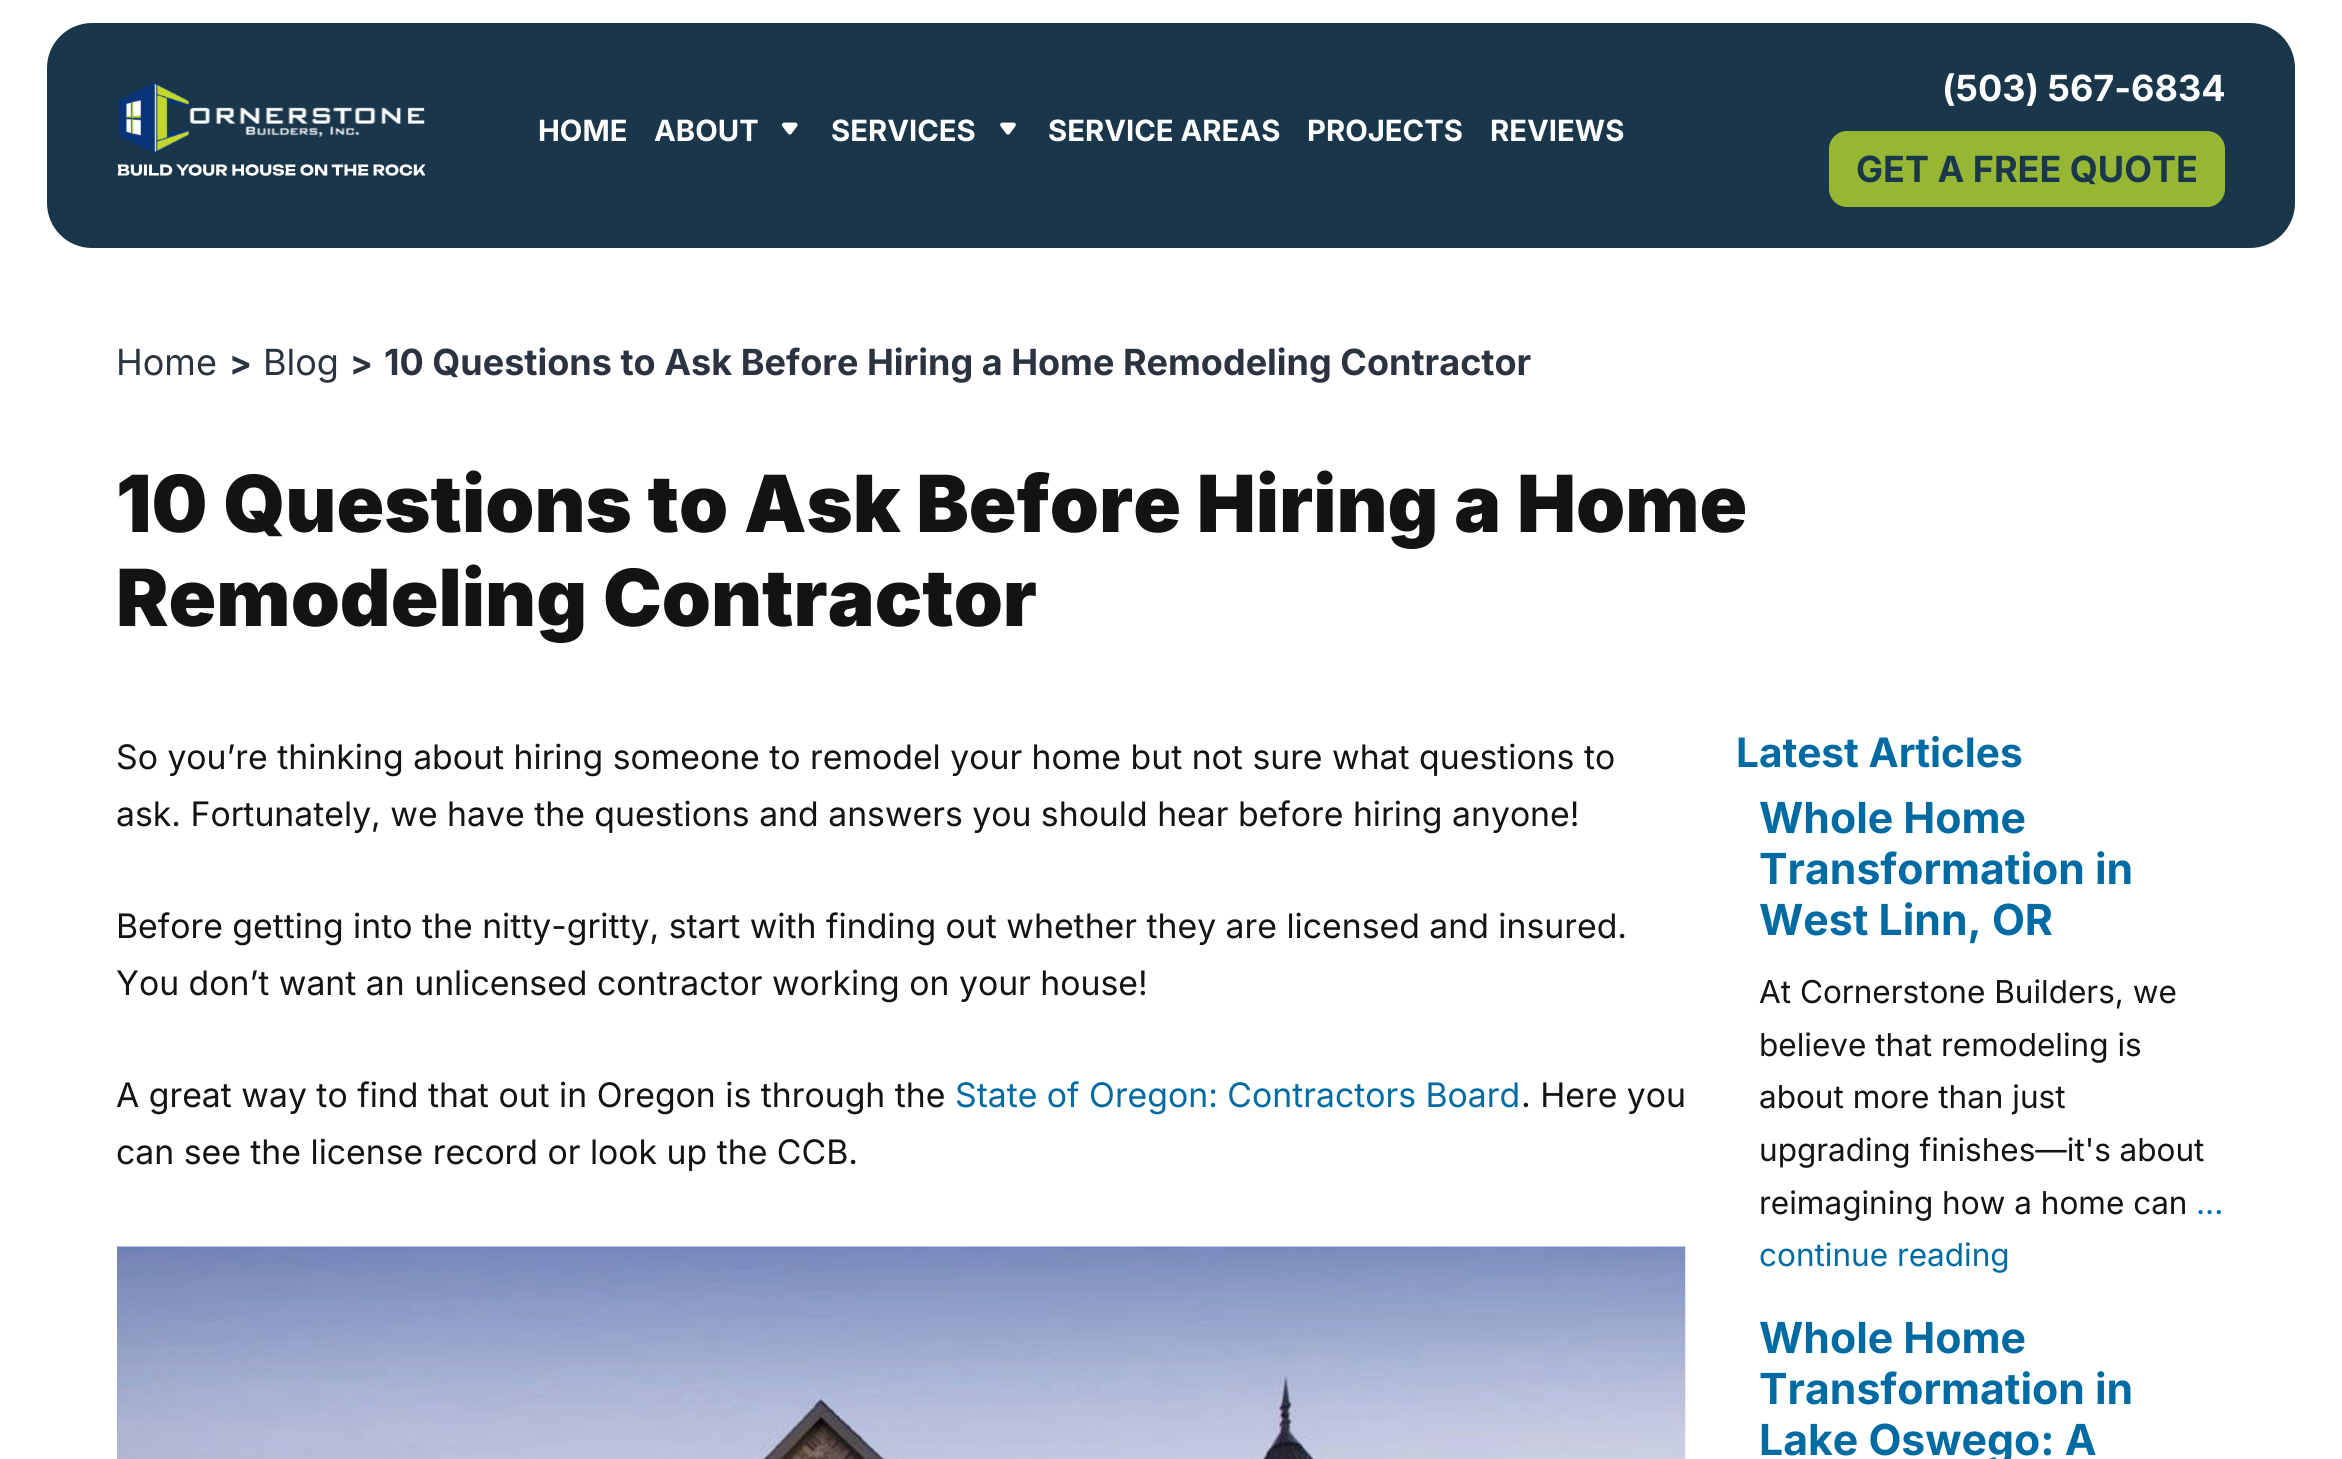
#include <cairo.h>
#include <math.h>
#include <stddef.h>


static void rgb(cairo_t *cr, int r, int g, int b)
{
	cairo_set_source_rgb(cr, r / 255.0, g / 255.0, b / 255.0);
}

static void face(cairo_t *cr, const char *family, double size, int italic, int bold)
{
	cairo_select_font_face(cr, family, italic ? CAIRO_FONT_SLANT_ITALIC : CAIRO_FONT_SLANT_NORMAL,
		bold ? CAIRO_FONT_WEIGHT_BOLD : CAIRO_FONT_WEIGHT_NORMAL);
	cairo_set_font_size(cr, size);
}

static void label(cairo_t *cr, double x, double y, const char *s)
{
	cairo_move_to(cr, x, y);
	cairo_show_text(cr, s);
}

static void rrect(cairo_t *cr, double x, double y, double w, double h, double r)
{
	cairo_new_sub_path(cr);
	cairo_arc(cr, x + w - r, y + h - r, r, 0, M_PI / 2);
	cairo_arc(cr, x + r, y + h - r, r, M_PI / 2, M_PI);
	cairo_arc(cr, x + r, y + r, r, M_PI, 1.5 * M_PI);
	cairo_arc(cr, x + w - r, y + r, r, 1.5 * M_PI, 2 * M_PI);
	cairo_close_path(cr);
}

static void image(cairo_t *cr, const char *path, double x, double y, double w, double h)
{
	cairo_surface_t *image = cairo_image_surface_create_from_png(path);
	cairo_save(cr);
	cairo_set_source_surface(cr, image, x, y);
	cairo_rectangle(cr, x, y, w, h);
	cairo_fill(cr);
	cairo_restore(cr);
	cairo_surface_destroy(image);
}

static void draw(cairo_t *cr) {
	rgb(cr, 255, 255, 255);
	cairo_paint(cr);
	rgb(cr, 26, 54, 74);
	rrect(cr, 47, 23, 2248, 225, 45);
	cairo_fill(cr);
	image(cr, "image0.png", 117, 82, 309, 94);
	face(cr, "Inter", 29.25, 0, 1);
	rgb(cr, 255, 255, 255);
	label(cr, 538, 141, "HOME");
	label(cr, 654, 141, "ABOUT");
	image(cr, "image1.png", 781, 122, 17, 13);
	label(cr, 831, 141, "SERVICES");
	image(cr, "image2.png", 1000, 122, 16, 13);
	label(cr, 1048, 141, "SERVICE AREAS");
	label(cr, 1307, 141, "PROJECTS");
	label(cr, 1490, 141, "REVIEWS");
	face(cr, "Inter", 36, 0, 1);
	label(cr, 1942, 101, "(503) 567-6834");
	rgb(cr, 150, 183, 51);
	rrect(cr, 1831.5, 133.5, 391, 71, 15.5);
	cairo_fill_preserve(cr);
	cairo_set_line_width(cr, 5);
	cairo_stroke(cr);
	rgb(cr, 26, 54, 74);
	label(cr, 1856, 182, "GET A FREE QUOTE");
	face(cr, "Inter", 36, 0, 0);
	rgb(cr, 44, 51, 64);
	label(cr, 116, 375, "Home");
	face(cr, "Inter", 33.75, 0, 1);
	label(cr, 229, 375, ">");
	face(cr, "Inter", 36, 0, 0);
	label(cr, 263, 375, "Blog");
	face(cr, "Inter", 33.75, 0, 1);
	label(cr, 350, 375, ">");
	face(cr, "Inter", 36, 0, 1);
	label(cr, 384, 375, "10 Questions to Ask Before Hiring a Home Remodeling Contractor");
	face(cr, "Inter Black", 78.75, 0, 0);
	rgb(cr, 19, 19, 19);
	label(cr, 116, 532, "10 Questions to Ask Before Hiring a Home");
	label(cr, 116, 626, "Remodeling Contractor");
	face(cr, "Inter", 33.75, 0, 0);
	label(cr, 116, 769, "So you’re thinking about hiring someone to remodel your home but not sure what questions to");
	label(cr, 116, 826, "ask. Fortunately, we have the questions and answers you should hear before hiring anyone!");
	label(cr, 116, 938, "Before getting into the nitty-gritty, start with finding out whether they are licensed and insured.");
	label(cr, 116, 995, "You don’t want an unlicensed contractor working on your house!");
	label(cr, 116, 1107, "A great way to find that out in Oregon is through the");
	rgb(cr, 0, 107, 162);
	label(cr, 955, 1107, "State of Oregon: Contractors Board");
	rgb(cr, 19, 19, 19);
	label(cr, 1521, 1107, ". Here you");
	label(cr, 116, 1164, "can see the license record or look up the CCB.");
	image(cr, "image3.png", 117, 1246, 1569, 213);
	face(cr, "Inter", 40.5, 0, 1);
	rgb(cr, 0, 107, 162);
	label(cr, 1736, 767, "Latest Articles");
	face(cr, "Inter", 42.75, 0, 1);
	label(cr, 1759, 833, "Whole Home");
	label(cr, 1759, 884, "Transformation in");
	label(cr, 1759, 935, "West Linn, OR");
	face(cr, "Inter", 31.5, 0, 0);
	rgb(cr, 19, 19, 19);
	label(cr, 1759, 1003, "At Cornerstone Builders, we");
	label(cr, 1759, 1056, "believe that remodeling is");
	label(cr, 1759, 1108, "about more than just");
	label(cr, 1759, 1161, "upgrading finishes—it's about");
	label(cr, 1759, 1214, "reimagining how a home can");
	rgb(cr, 0, 107, 162);
	label(cr, 2196, 1214, "...");
	label(cr, 1759, 1266, "continue reading");
	face(cr, "Inter", 42.75, 0, 1);
	label(cr, 1759, 1353, "Whole Home");
	label(cr, 1759, 1404, "Transformation in");
	label(cr, 1759, 1455, "Lake Oswego: A");
}

int main(void) {
	cairo_surface_t *surface = cairo_image_surface_create(CAIRO_FORMAT_RGB24, 2342, 1459);
	cairo_t *cr = cairo_create(surface);
	cairo_font_options_t *options = cairo_font_options_create();
	cairo_font_options_set_hint_metrics(options, CAIRO_HINT_METRICS_OFF);
	cairo_font_options_set_hint_style(options, CAIRO_HINT_STYLE_NONE);
	cairo_set_font_options(cr, options);
	cairo_set_miter_limit(cr, 4);
	draw(cr);
	cairo_surface_write_to_png(surface, "render.png");
	cairo_font_options_destroy(options);
	cairo_destroy(cr);
	cairo_surface_destroy(surface);
	return 0;
}
